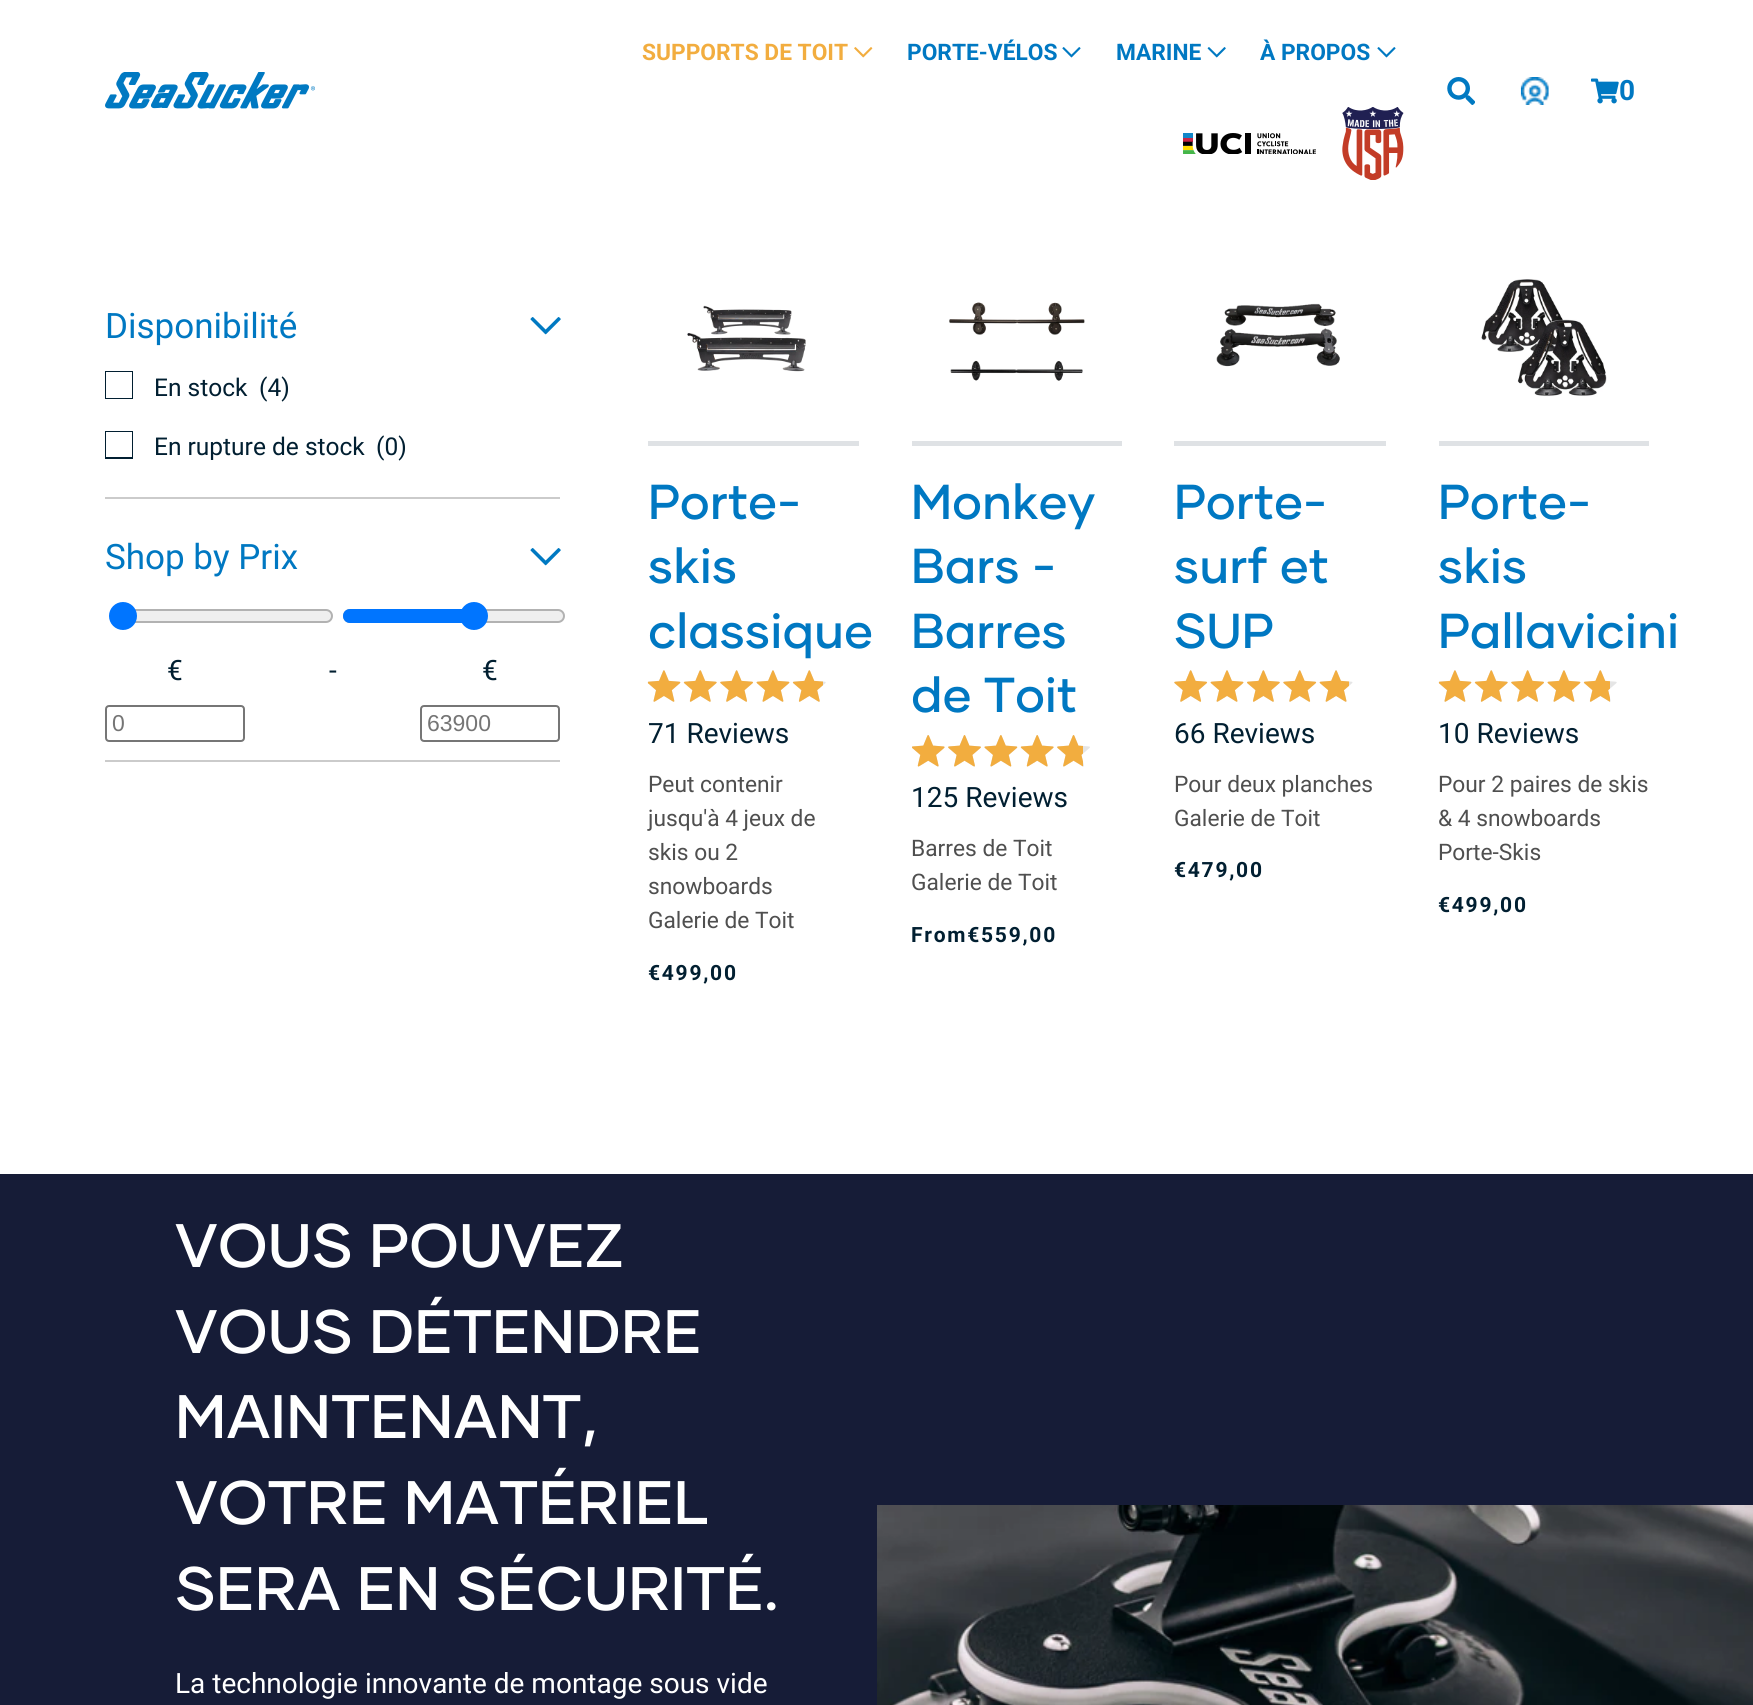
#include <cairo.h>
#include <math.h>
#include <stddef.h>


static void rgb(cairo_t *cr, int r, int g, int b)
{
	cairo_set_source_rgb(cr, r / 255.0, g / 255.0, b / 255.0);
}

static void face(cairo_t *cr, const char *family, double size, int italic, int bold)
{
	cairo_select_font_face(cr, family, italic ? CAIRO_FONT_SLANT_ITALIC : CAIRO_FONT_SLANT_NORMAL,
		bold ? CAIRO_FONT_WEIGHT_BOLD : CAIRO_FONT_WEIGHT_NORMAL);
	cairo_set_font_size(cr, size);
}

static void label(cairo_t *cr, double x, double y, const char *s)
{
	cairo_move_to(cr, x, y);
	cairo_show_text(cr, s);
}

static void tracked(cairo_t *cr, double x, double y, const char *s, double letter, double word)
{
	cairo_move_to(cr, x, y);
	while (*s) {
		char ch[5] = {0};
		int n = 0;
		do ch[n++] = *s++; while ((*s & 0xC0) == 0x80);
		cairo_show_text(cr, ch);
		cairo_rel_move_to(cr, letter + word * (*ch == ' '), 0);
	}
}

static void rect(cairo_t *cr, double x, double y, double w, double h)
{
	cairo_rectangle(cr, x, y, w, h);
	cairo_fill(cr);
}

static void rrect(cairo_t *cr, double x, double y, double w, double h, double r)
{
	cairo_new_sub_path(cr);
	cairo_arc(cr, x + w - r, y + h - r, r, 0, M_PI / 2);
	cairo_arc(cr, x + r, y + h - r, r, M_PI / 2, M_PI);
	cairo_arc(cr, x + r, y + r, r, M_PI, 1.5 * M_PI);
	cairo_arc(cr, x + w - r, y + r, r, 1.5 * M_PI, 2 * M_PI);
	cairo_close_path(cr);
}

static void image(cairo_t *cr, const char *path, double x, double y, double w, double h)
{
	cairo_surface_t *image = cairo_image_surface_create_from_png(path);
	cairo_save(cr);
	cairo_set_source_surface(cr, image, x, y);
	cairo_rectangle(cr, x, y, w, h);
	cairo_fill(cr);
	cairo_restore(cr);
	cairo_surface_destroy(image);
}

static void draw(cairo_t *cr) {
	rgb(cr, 255, 255, 255);
	cairo_paint(cr);
	face(cr, "Roboto", 22.75, 0, 1);
	rgb(cr, 242, 173, 63);
	label(cr, 642, 60, "SUPPORTS DE TOIT");
	image(cr, "image0.png", 854, 47, 19, 11);
	rgb(cr, 0, 120, 194);
	label(cr, 907, 60, "PORTE-VÉLOS");
	image(cr, "image1.png", 1062, 47, 19, 11);
	label(cr, 1116, 60, "MARINE");
	image(cr, "image2.png", 1207, 47, 19, 11);
	label(cr, 1260, 60, "À PROPOS");
	image(cr, "image1.png", 1377, 47, 19, 11);
	image(cr, "image3.png", 1183, 133, 133, 21);
	image(cr, "image4.png", 1342, 107, 62, 73);
	image(cr, "image5.png", 105, 72, 210, 37);
	image(cr, "image6.png", 1447, 77, 28, 28);
	image(cr, "image7.png", 1520, 77, 29, 28);
	image(cr, "image8.png", 1591, 78, 28, 26);
	face(cr, "Roboto", 28, 0, 1);
	label(cr, 1619, 100, "0");
	rgb(cr, 203, 203, 203);
	rect(cr, 105, 497, 455, 2);
	face(cr, "Roboto", 35, 0, 0);
	rgb(cr, 0, 120, 194);
	label(cr, 105, 338, "Disponibilité");
	image(cr, "image9.png", 530, 317, 31, 18);
	cairo_save(cr);
	cairo_rectangle(cr, 105, 371, 28, 28);
	cairo_clip(cr);
	cairo_rectangle(cr, 105, 371, 28, 28);
	rgb(cr, 1, 31, 49);
	cairo_stroke(cr);
	cairo_restore(cr);
	face(cr, "Roboto", 24.5, 0, 0);
	rgb(cr, 1, 31, 49);
	label(cr, 154, 396, "En stock");
	label(cr, 259, 396, "(4)");
	cairo_save(cr);
	cairo_rectangle(cr, 105, 431, 28, 28);
	cairo_clip(cr);
	cairo_rectangle(cr, 105, 431, 28, 27);
	cairo_stroke(cr);
	cairo_restore(cr);
	label(cr, 154, 455, "En rupture de stock");
	label(cr, 376, 455, "(0)");
	rgb(cr, 203, 203, 203);
	rect(cr, 105, 760, 455, 2);
	face(cr, "Roboto", 35, 0, 0);
	rgb(cr, 0, 120, 194);
	label(cr, 105, 569, "Shop by Prix");
	image(cr, "image9.png", 530, 548, 31, 18);
	rgb(cr, 239, 239, 239);
	rrect(cr, 111, 610, 221, 12, 6);
	cairo_fill_preserve(cr);
	rgb(cr, 178, 178, 178);
	cairo_stroke(cr);
	rgb(cr, 0, 117, 255);
	cairo_arc(cr, 123, 616, 14, 0, 2 * M_PI);
	cairo_fill(cr);
	rgb(cr, 239, 239, 239);
	rrect(cr, 344, 610, 220, 12, 6);
	cairo_fill_preserve(cr);
	rgb(cr, 178, 178, 178);
	cairo_stroke(cr);
	rgb(cr, 0, 117, 255);
	cairo_new_path(cr);
	cairo_move_to(cr, 350, 609);
	cairo_line_to(cr, 474, 609);
	cairo_line_to(cr, 474, 623);
	cairo_line_to(cr, 350, 623);
	cairo_curve_to(cr, 346, 623, 343, 620, 343, 616);
	cairo_curve_to(cr, 343, 612, 346, 609, 350, 609);
	cairo_close_path(cr);
	cairo_fill(cr);
	cairo_arc(cr, 474, 616, 14, 0, 2 * M_PI);
	cairo_fill(cr);
	face(cr, "Roboto", 28, 0, 0);
	rgb(cr, 1, 31, 49);
	label(cr, 167, 680, "€");
	rrect(cr, 106, 706, 138, 35, 3);
	rgb(cr, 118, 118, 118);
	cairo_stroke(cr);
	face(cr, "Liberation Sans", 23, 0, 0);
	rgb(cr, 117, 117, 117);
	label(cr, 112, 731, "0");
	face(cr, "Roboto", 28, 0, 0);
	rgb(cr, 1, 31, 49);
	label(cr, 329, 680, "-");
	label(cr, 482, 680, "€");
	rrect(cr, 421, 706, 138, 35, 3);
	rgb(cr, 118, 118, 118);
	cairo_stroke(cr);
	face(cr, "Liberation Sans", 23, 0, 0);
	rgb(cr, 117, 117, 117);
	label(cr, 427, 731, "63900");
	image(cr, "image10.png", 687, 305, 119, 67);
	rgb(cr, 223, 226, 229);
	rect(cr, 648, 441, 211, 5);
	face(cr, "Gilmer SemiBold", 49, 0, 0);
	rgb(cr, 0, 120, 194);
	label(cr, 648, 519, "Porte-");
	label(cr, 648, 583, "skis");
	label(cr, 648, 648, "classique");
	image(cr, "image11.png", 647, 670, 179, 32);
	image(cr, "image12.png", 648, 670, 175, 32);
	face(cr, "Roboto", 28, 0, 0);
	rgb(cr, 1, 31, 49);
	label(cr, 648, 743, "71 Reviews");
	face(cr, "Roboto", 22.75, 0, 0);
	rgb(cr, 79, 79, 79);
	label(cr, 648, 792, "Peut contenir");
	label(cr, 648, 826, "jusqu'à 4 jeux de");
	label(cr, 648, 860, "skis ou 2");
	label(cr, 648, 894, "snowboards");
	label(cr, 648, 928, "Galerie de Toit");
	face(cr, "Roboto", 21, 0, 1);
	rgb(cr, 1, 31, 49);
	tracked(cr, 648, 980, "€499,00", 1.75, 0);
	image(cr, "image13.png", 949, 302, 136, 79);
	rgb(cr, 223, 226, 229);
	rect(cr, 912, 441, 210, 5);
	face(cr, "Gilmer SemiBold", 49, 0, 0);
	rgb(cr, 0, 120, 194);
	label(cr, 911, 519, "Monkey");
	label(cr, 911, 583, "Bars -");
	label(cr, 911, 648, "Barres");
	label(cr, 911, 712, "de Toit");
	image(cr, "image14.png", 912, 735, 178, 32);
	image(cr, "image15.png", 912, 735, 171, 32);
	face(cr, "Roboto", 28, 0, 0);
	rgb(cr, 1, 31, 49);
	label(cr, 911, 807, "125 Reviews");
	face(cr, "Roboto", 22.75, 0, 0);
	rgb(cr, 79, 79, 79);
	label(cr, 911, 856, "Barres de Toit");
	label(cr, 911, 890, "Galerie de Toit");
	face(cr, "Roboto", 21, 0, 1);
	rgb(cr, 1, 31, 49);
	tracked(cr, 911, 942, "From€559,00", 1.75, 0);
	image(cr, "image16.png", 1216, 303, 124, 64);
	rgb(cr, 223, 226, 229);
	rect(cr, 1174, 441, 212, 5);
	face(cr, "Gilmer SemiBold", 49, 0, 0);
	rgb(cr, 0, 120, 194);
	label(cr, 1174, 519, "Porte-");
	label(cr, 1174, 583, "surf et");
	label(cr, 1174, 648, "SUP");
	image(cr, "image17.png", 1174, 670, 179, 32);
	image(cr, "image18.png", 1174, 670, 175, 32);
	face(cr, "Roboto", 28, 0, 0);
	rgb(cr, 1, 31, 49);
	label(cr, 1174, 743, "66 Reviews");
	face(cr, "Roboto", 22.75, 0, 0);
	rgb(cr, 79, 79, 79);
	label(cr, 1174, 792, "Pour deux planches");
	label(cr, 1174, 826, "Galerie de Toit");
	face(cr, "Roboto", 21, 0, 1);
	rgb(cr, 1, 31, 49);
	tracked(cr, 1174, 877, "€479,00", 1.75, 0);
	image(cr, "image19.png", 1481, 279, 126, 118);
	rgb(cr, 223, 226, 229);
	rect(cr, 1439, 441, 210, 5);
	face(cr, "Gilmer SemiBold", 49, 0, 0);
	rgb(cr, 0, 120, 194);
	label(cr, 1438, 519, "Porte-");
	label(cr, 1438, 583, "skis");
	label(cr, 1438, 648, "Pallavicini");
	image(cr, "image11.png", 1438, 670, 179, 32);
	image(cr, "image20.png", 1439, 670, 171, 32);
	face(cr, "Roboto", 28, 0, 0);
	rgb(cr, 1, 31, 49);
	label(cr, 1438, 743, "10 Reviews");
	face(cr, "Roboto", 22.75, 0, 0);
	rgb(cr, 79, 79, 79);
	label(cr, 1438, 792, "Pour 2 paires de skis");
	label(cr, 1438, 826, "& 4 snowboards");
	label(cr, 1438, 860, "Porte-Skis");
	face(cr, "Roboto", 21, 0, 1);
	rgb(cr, 1, 31, 49);
	tracked(cr, 1438, 912, "€499,00", 1.75, 0);
	rgb(cr, 22, 28, 55);
	rect(cr, 0, 1174, 1753, 531);
	face(cr, "Gilmer SemiBold", 61.25, 0, 0);
	rgb(cr, 255, 255, 255);
	tracked(cr, 175, 1267, "VOUS POUVEZ", 0.4, 0);
	tracked(cr, 175, 1353, "VOUS DÉTENDRE", 0.4, 0);
	tracked(cr, 175, 1438, "MAINTENANT,", 0.4, 0);
	tracked(cr, 175, 1524, "VOTRE MATÉRIEL", 0.4, 0);
	tracked(cr, 175, 1610, "SERA EN SÉCURITÉ.", 0.4, 0);
	face(cr, "Roboto", 28, 0, 0);
	label(cr, 175, 1693, "La technologie innovante de montage sous vide");
	image(cr, "image21.png", 877, 1505, 876, 200);
}

int main(void) {
	cairo_surface_t *surface = cairo_image_surface_create(CAIRO_FORMAT_RGB24, 1753, 1705);
	cairo_t *cr = cairo_create(surface);
	cairo_font_options_t *options = cairo_font_options_create();
	cairo_font_options_set_hint_metrics(options, CAIRO_HINT_METRICS_OFF);
	cairo_font_options_set_hint_style(options, CAIRO_HINT_STYLE_NONE);
	cairo_set_font_options(cr, options);
	cairo_set_miter_limit(cr, 4);
	draw(cr);
	cairo_surface_write_to_png(surface, "render.png");
	cairo_font_options_destroy(options);
	cairo_destroy(cr);
	cairo_surface_destroy(surface);
	return 0;
}
